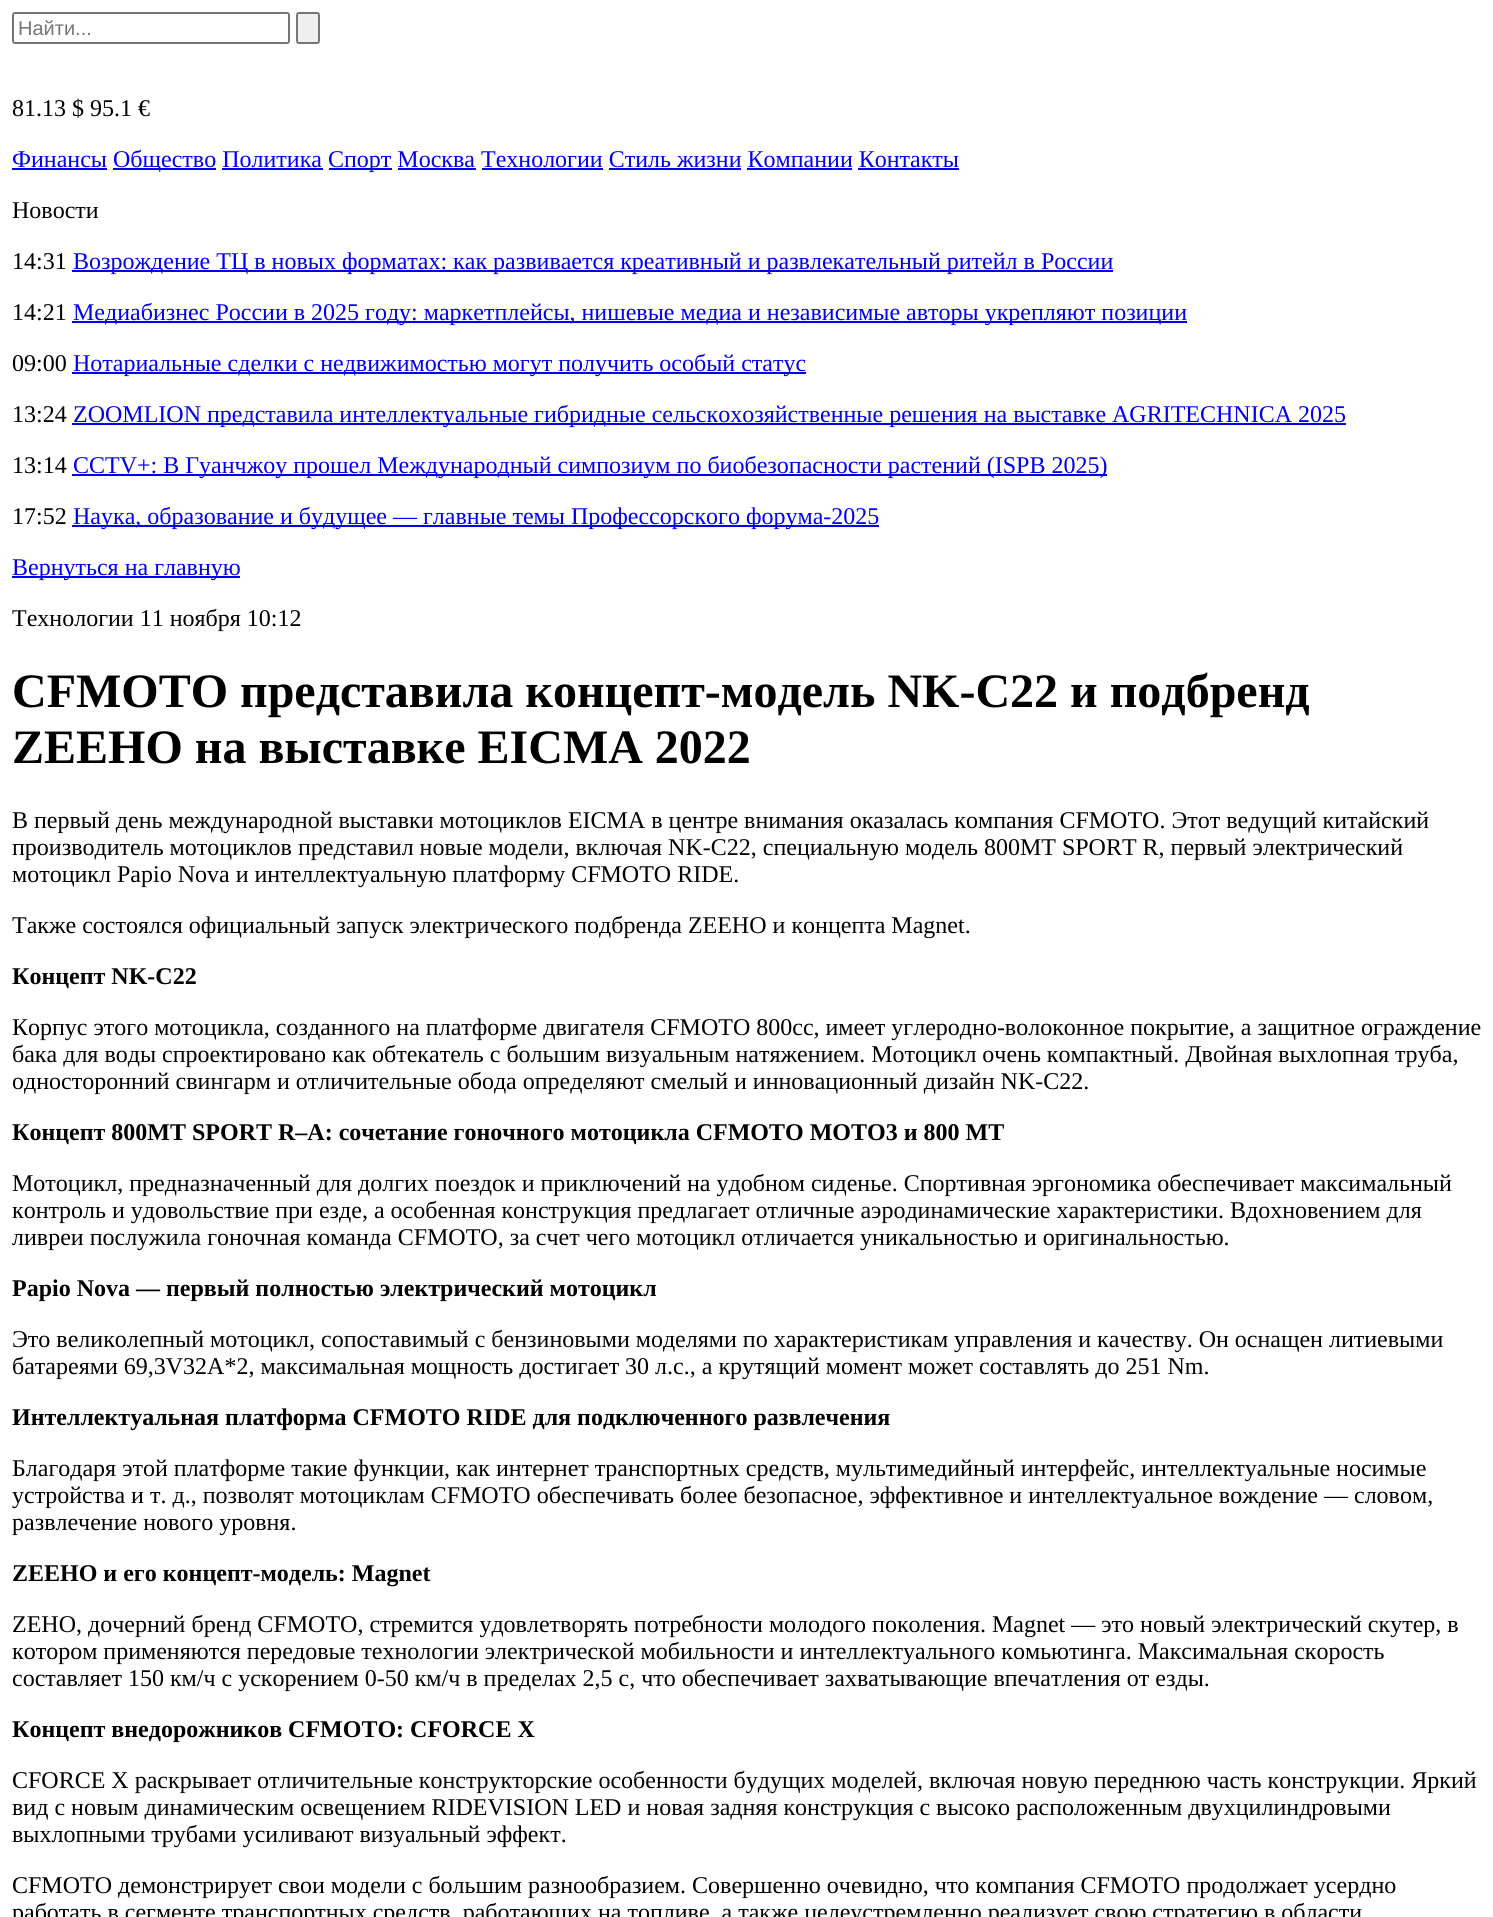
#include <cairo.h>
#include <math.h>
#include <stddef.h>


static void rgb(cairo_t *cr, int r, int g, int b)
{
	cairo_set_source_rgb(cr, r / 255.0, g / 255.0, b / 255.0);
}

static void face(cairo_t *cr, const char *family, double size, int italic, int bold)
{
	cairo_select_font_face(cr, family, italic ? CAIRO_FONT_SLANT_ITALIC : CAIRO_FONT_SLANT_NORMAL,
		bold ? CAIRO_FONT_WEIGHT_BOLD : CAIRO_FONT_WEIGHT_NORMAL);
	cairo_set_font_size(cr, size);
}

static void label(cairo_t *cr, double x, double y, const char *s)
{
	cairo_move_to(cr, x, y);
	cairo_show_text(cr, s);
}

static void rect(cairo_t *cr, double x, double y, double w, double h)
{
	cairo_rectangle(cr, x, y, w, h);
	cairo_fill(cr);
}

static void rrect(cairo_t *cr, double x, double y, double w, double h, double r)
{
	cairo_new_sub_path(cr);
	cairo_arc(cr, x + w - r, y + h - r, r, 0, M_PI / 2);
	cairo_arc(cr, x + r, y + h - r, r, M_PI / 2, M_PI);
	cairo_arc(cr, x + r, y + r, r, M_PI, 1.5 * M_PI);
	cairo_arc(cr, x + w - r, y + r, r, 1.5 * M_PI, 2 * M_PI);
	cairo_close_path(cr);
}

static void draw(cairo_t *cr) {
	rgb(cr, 255, 255, 255);
	cairo_paint(cr);
	rrect(cr, 13, 13, 276, 30, 2);
	rgb(cr, 118, 118, 118);
	cairo_stroke(cr);
	face(cr, "Liberation Sans", 20, 0, 0);
	rgb(cr, 117, 117, 117);
	label(cr, 18, 35, "Найти...");
	rgb(cr, 239, 239, 239);
	rrect(cr, 297, 13, 22, 30, 2);
	cairo_fill_preserve(cr);
	rgb(cr, 118, 118, 118);
	cairo_stroke(cr);
	face(cr, "Liberation Serif", 24, 0, 0);
	rgb(cr, 0, 0, 0);
	label(cr, 12, 116, "81.13 $ 95.1 €");
	rgb(cr, 0, 0, 238);
	label(cr, 12, 167, "Финансы");
	rect(cr, 12, 168, 95, 2);
	rect(cr, 113, 168, 103, 2);
	label(cr, 113, 167, "Общество Политика");
	rect(cr, 329, 168, 63, 2);
	label(cr, 328, 167, "Спорт Москва Технологии Стиль жизни Компании Контакты");
	rect(cr, 222, 168, 101, 2);
	rect(cr, 398, 168, 78, 2);
	rect(cr, 482, 168, 121, 2);
	rect(cr, 609, 168, 132, 2);
	rect(cr, 747, 168, 105, 2);
	rect(cr, 858, 168, 101, 2);
	rgb(cr, 0, 0, 0);
	label(cr, 12, 218, "Новости");
	label(cr, 12, 269, "14:31");
	rgb(cr, 0, 0, 238);
	rect(cr, 72, 270, 1041, 2);
	label(cr, 73, 269, "Возрождение ТЦ в новых форматах: как развивается креативный и развлекательный ритейл в России");
	rgb(cr, 0, 0, 0);
	label(cr, 12, 320, "14:21");
	rgb(cr, 0, 0, 238);
	rect(cr, 72, 321, 1115, 2);
	label(cr, 73, 320, "Медиабизнес России в 2025 году: маркетплейсы, нишевые медиа и независимые авторы укрепляют позиции");
	rgb(cr, 0, 0, 0);
	label(cr, 12, 371, "09:00");
	rgb(cr, 0, 0, 238);
	rect(cr, 72, 372, 734, 2);
	label(cr, 73, 371, "Нотариальные сделки с недвижимостью могут получить особый статус");
	rgb(cr, 0, 0, 0);
	label(cr, 12, 422, "13:24");
	rgb(cr, 0, 0, 238);
	rect(cr, 72, 423, 1274, 2);
	label(cr, 73, 422, "ZOOMLION представила интеллектуальные гибридные сельскохозяйственные решения на выставке AGRITECHNICA 2025");
	rgb(cr, 0, 0, 0);
	label(cr, 12, 473, "13:14");
	rgb(cr, 0, 0, 238);
	rect(cr, 72, 474, 1035, 2);
	label(cr, 73, 473, "CCTV+: В Гуанчжоу прошел Международный симпозиум по биобезопасности растений (ISPB 2025)");
	rgb(cr, 0, 0, 0);
	label(cr, 12, 524, "17:52");
	rgb(cr, 0, 0, 238);
	rect(cr, 72, 525, 807, 2);
	label(cr, 73, 524, "Наука, образование и будущее — главные темы Профессорского форума-2025");
	rect(cr, 12, 576, 228, 2);
	label(cr, 12, 575, "Вернуться на главную");
	rgb(cr, 0, 0, 0);
	label(cr, 12, 626, "Технологии 11 ноября 10:12");
	face(cr, "Liberation Serif", 48, 0, 1);
	label(cr, 12, 707, "CFMOTO представила концепт-модель NK-C22 и подбренд");
	label(cr, 12, 763, "ZEEHO на выставке EICMA 2022");
	face(cr, "Liberation Serif", 24, 0, 0);
	label(cr, 12, 828, "В первый день международной выставки мотоциклов EICMA в центре внимания оказалась компания CFMOTO. Этот ведущий китайский");
	label(cr, 12, 855, "производитель мотоциклов представил новые модели, включая NK-C22, специальную модель 800MT SPORT R, первый электрический");
	label(cr, 12, 882, "мотоцикл Papio Nova и интеллектуальную платформу CFMOTO RIDE.");
	label(cr, 12, 933, "Также состоялся официальный запуск электрического подбренда ZEEHO и концепта Magnet.");
	face(cr, "Liberation Serif", 24, 0, 1);
	label(cr, 12, 984, "Концепт NK-C22");
	face(cr, "Liberation Serif", 24, 0, 0);
	label(cr, 12, 1035, "Корпус этого мотоцикла, созданного на платформе двигателя CFMOTO 800cc, имеет углеродно-волоконное покрытие, а защитное ограждение");
	label(cr, 12, 1062, "бака для воды спроектировано как обтекатель с большим визуальным натяжением. Мотоцикл очень компактный. Двойная выхлопная труба,");
	label(cr, 12, 1089, "односторонний свингарм и отличительные обода определяют смелый и инновационный дизайн NK-C22.");
	face(cr, "Liberation Serif", 24, 0, 1);
	label(cr, 12, 1140, "Концепт 800MT SPORT R–A: сочетание гоночного мотоцикла CFMOTO MOTO3 и 800 MT");
	face(cr, "Liberation Serif", 24, 0, 0);
	label(cr, 12, 1191, "Мотоцикл, предназначенный для долгих поездок и приключений на удобном сиденье. Спортивная эргономика обеспечивает максимальный");
	label(cr, 12, 1218, "контроль и удовольствие при езде, а особенная конструкция предлагает отличные аэродинамические характеристики. Вдохновением для");
	label(cr, 12, 1245, "ливреи послужила гоночная команда CFMOTO, за счет чего мотоцикл отличается уникальностью и оригинальностью.");
	face(cr, "Liberation Serif", 24, 0, 1);
	label(cr, 12, 1296, "Papio Nova — первый полностью электрический мотоцикл");
	face(cr, "Liberation Serif", 24, 0, 0);
	label(cr, 12, 1347, "Это великолепный мотоцикл, сопоставимый с бензиновыми моделями по характеристикам управления и качеству. Он оснащен литиевыми");
	label(cr, 12, 1374, "батареями 69,3V32A*2, максимальная мощность достигает 30 л.с., а крутящий момент может составлять до 251 Nm.");
	face(cr, "Liberation Serif", 24, 0, 1);
	label(cr, 12, 1425, "Интеллектуальная платформа CFMOTO RIDE для подключенного развлечения");
	face(cr, "Liberation Serif", 24, 0, 0);
	label(cr, 12, 1476, "Благодаря этой платформе такие функции, как интернет транспортных средств, мультимедийный интерфейс, интеллектуальные носимые");
	label(cr, 12, 1503, "устройства и т. д., позволят мотоциклам CFMOTO обеспечивать более безопасное, эффективное и интеллектуальное вождение — словом,");
	label(cr, 12, 1530, "развлечение нового уровня.");
	face(cr, "Liberation Serif", 24, 0, 1);
	label(cr, 12, 1581, "ZEEHO и его концепт-модель: Magnet");
	face(cr, "Liberation Serif", 24, 0, 0);
	label(cr, 12, 1632, "ZEHO, дочерний бренд CFMOTO, стремится удовлетворять потребности молодого поколения. Magnet — это новый электрический скутер, в");
	label(cr, 12, 1659, "котором применяются передовые технологии электрической мобильности и интеллектуального комьютинга. Максимальная скорость");
	label(cr, 12, 1686, "составляет 150 км/ч с ускорением 0-50 км/ч в пределах 2,5 с, что обеспечивает захватывающие впечатления от езды.");
	face(cr, "Liberation Serif", 24, 0, 1);
	label(cr, 12, 1737, "Концепт внедорожников CFMOTO: CFORCE X");
	face(cr, "Liberation Serif", 24, 0, 0);
	label(cr, 12, 1788, "CFORCE X раскрывает отличительные конструкторские особенности будущих моделей, включая новую переднюю часть конструкции. Яркий");
	label(cr, 12, 1815, "вид с новым динамическим освещением RIDEVISION LED и новая задняя конструкция с высоко расположенным двухцилиндровыми");
	label(cr, 12, 1842, "выхлопными трубами усиливают визуальный эффект.");
	label(cr, 12, 1893, "CFMOTO демонстрирует свои модели с большим разнообразием. Совершенно очевидно, что компания CFMOTO продолжает усердно");
	label(cr, 12, 1920, "работать в сегменте транспортных средств, работающих на топливе, а также целеустремленно реализует свою стратегию в области");
}

int main(void) {
	cairo_surface_t *surface = cairo_image_surface_create(CAIRO_FORMAT_RGB24, 1493, 1917);
	cairo_t *cr = cairo_create(surface);
	cairo_font_options_t *options = cairo_font_options_create();
	cairo_font_options_set_hint_metrics(options, CAIRO_HINT_METRICS_OFF);
	cairo_font_options_set_hint_style(options, CAIRO_HINT_STYLE_NONE);
	cairo_set_font_options(cr, options);
	cairo_set_miter_limit(cr, 4);
	draw(cr);
	cairo_surface_write_to_png(surface, "render.png");
	cairo_font_options_destroy(options);
	cairo_destroy(cr);
	cairo_surface_destroy(surface);
	return 0;
}
